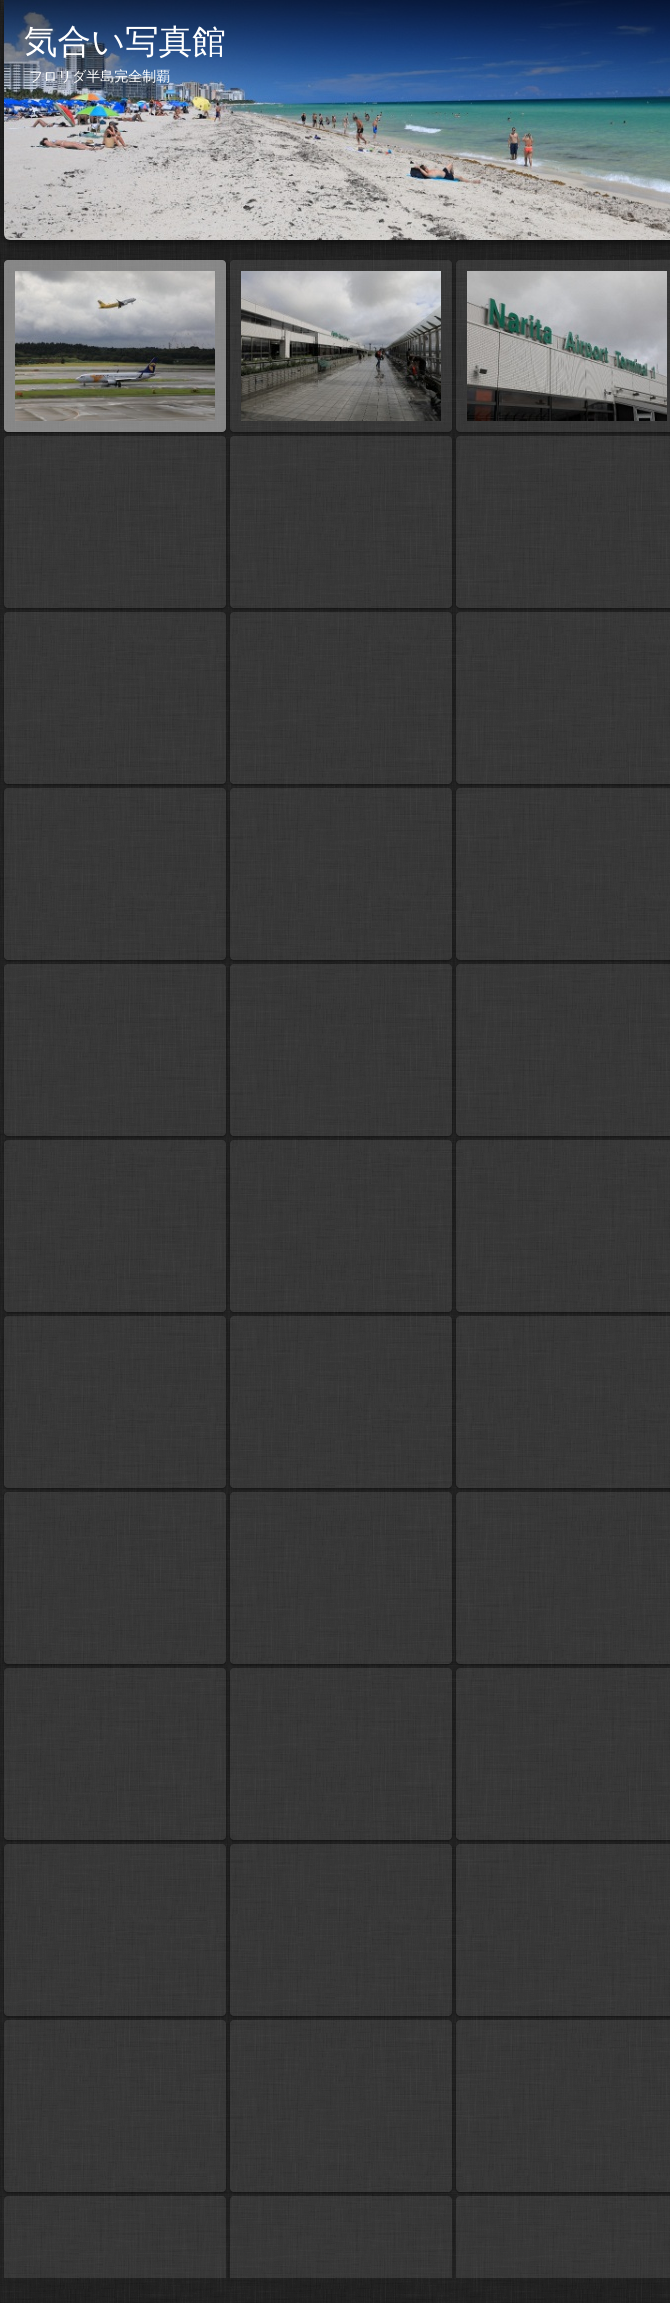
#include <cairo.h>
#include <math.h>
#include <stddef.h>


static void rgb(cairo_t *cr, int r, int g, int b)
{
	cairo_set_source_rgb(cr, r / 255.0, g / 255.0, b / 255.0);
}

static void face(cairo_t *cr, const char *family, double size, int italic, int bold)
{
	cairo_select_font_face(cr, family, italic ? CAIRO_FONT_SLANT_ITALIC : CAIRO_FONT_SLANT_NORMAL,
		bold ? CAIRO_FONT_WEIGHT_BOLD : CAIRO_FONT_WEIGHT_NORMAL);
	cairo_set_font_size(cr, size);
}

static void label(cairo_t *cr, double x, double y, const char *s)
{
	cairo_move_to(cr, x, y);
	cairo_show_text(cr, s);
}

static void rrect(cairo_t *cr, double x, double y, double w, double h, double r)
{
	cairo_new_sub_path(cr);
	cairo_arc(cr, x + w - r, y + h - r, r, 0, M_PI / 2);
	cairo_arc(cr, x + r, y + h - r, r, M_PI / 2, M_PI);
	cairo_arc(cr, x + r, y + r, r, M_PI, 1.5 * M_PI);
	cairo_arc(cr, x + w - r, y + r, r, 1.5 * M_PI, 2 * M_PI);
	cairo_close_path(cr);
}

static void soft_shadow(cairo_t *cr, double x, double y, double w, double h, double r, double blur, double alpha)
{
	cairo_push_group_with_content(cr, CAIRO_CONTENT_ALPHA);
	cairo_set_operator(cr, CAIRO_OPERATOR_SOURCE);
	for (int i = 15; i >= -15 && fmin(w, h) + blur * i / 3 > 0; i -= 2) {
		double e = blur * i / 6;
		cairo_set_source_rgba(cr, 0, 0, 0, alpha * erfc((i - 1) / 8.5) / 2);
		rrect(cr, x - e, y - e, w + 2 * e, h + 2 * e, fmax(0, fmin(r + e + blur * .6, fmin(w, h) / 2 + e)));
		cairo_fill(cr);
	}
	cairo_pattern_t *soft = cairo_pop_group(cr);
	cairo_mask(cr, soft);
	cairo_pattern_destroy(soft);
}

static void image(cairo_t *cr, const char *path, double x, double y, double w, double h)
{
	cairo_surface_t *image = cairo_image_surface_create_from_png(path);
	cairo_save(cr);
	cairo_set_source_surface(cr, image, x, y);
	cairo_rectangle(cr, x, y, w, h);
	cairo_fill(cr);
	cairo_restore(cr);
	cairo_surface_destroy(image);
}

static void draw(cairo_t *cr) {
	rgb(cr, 34, 34, 34);
	cairo_paint(cr);
	image(cr, "image0.png", 0, 0, 670, 2303);
	rgb(cr, 0, 0, 0);
	soft_shadow(cr, 5, 3, 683, 240, 6, 4, 0.6);
	image(cr, "image1.png", 4, 0, 666, 240);
	face(cr, "WenQuanYi Zen Hei Medium", 33.5, 0, 0);
	rgb(cr, 255, 255, 255);
	label(cr, 24, 53, "気合い写真館");
	face(cr, "WenQuanYi Zen Hei Medium", 14, 0, 0);
	label(cr, 29, 81, "フロリダ半島完全制覇");
	cairo_save(cr);
	cairo_set_fill_rule(cr, CAIRO_FILL_RULE_EVEN_ODD);
	cairo_new_path(cr);
	cairo_move_to(cr, 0, 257);
	cairo_line_to(cr, 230, 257);
	cairo_line_to(cr, 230, 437);
	cairo_line_to(cr, 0, 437);
	cairo_close_path(cr);
	cairo_move_to(cr, 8, 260);
	cairo_line_to(cr, 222, 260);
	cairo_curve_to(cr, 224, 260, 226, 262, 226, 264);
	cairo_line_to(cr, 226, 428);
	cairo_curve_to(cr, 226, 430, 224, 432, 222, 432);
	cairo_line_to(cr, 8, 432);
	cairo_curve_to(cr, 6, 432, 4, 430, 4, 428);
	cairo_line_to(cr, 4, 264);
	cairo_curve_to(cr, 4, 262, 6, 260, 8, 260);
	cairo_close_path(cr);
	cairo_clip(cr);
	rgb(cr, 0, 0, 0);
	soft_shadow(cr, 4, 261, 222, 172, 4, 1, 0.4);
	cairo_restore(cr);
	cairo_set_source_rgba(cr, 1, 1, 1, 0.1);
	rrect(cr, 4, 260, 222, 172, 4);
	cairo_fill(cr);
	cairo_set_source_rgba(cr, 1, 1, 1, 0.4);
	rrect(cr, 4, 260, 222, 172, 4);
	cairo_fill(cr);
	image(cr, "image2.png", 15, 271, 200, 150);
	cairo_save(cr);
	cairo_set_fill_rule(cr, CAIRO_FILL_RULE_EVEN_ODD);
	cairo_new_path(cr);
	cairo_move_to(cr, 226, 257);
	cairo_line_to(cr, 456, 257);
	cairo_line_to(cr, 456, 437);
	cairo_line_to(cr, 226, 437);
	cairo_close_path(cr);
	cairo_move_to(cr, 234, 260);
	cairo_line_to(cr, 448, 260);
	cairo_curve_to(cr, 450, 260, 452, 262, 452, 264);
	cairo_line_to(cr, 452, 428);
	cairo_curve_to(cr, 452, 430, 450, 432, 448, 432);
	cairo_line_to(cr, 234, 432);
	cairo_curve_to(cr, 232, 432, 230, 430, 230, 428);
	cairo_line_to(cr, 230, 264);
	cairo_curve_to(cr, 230, 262, 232, 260, 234, 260);
	cairo_close_path(cr);
	cairo_clip(cr);
	rgb(cr, 0, 0, 0);
	soft_shadow(cr, 230, 261, 222, 172, 4, 1, 0.4);
	cairo_restore(cr);
	cairo_set_source_rgba(cr, 1, 1, 1, 0.1);
	rrect(cr, 230, 260, 222, 172, 4);
	cairo_fill(cr);
	image(cr, "image3.png", 241, 271, 200, 150);
	cairo_save(cr);
	cairo_set_fill_rule(cr, CAIRO_FILL_RULE_EVEN_ODD);
	cairo_new_path(cr);
	cairo_move_to(cr, 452, 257);
	cairo_line_to(cr, 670, 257);
	cairo_line_to(cr, 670, 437);
	cairo_line_to(cr, 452, 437);
	cairo_close_path(cr);
	cairo_move_to(cr, 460, 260);
	cairo_line_to(cr, 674, 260);
	cairo_curve_to(cr, 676, 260, 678, 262, 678, 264);
	cairo_line_to(cr, 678, 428);
	cairo_curve_to(cr, 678, 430, 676, 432, 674, 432);
	cairo_line_to(cr, 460, 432);
	cairo_curve_to(cr, 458, 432, 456, 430, 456, 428);
	cairo_line_to(cr, 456, 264);
	cairo_curve_to(cr, 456, 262, 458, 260, 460, 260);
	cairo_close_path(cr);
	cairo_clip(cr);
	rgb(cr, 0, 0, 0);
	soft_shadow(cr, 456, 261, 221, 172, 4, 1, 0.4);
	cairo_restore(cr);
	cairo_new_path(cr);
	cairo_move_to(cr, 460, 260);
	cairo_line_to(cr, 670, 260);
	cairo_line_to(cr, 670, 432);
	cairo_line_to(cr, 460, 432);
	cairo_curve_to(cr, 458, 432, 456, 430, 456, 428);
	cairo_line_to(cr, 456, 264);
	cairo_curve_to(cr, 456, 262, 458, 260, 460, 260);
	cairo_close_path(cr);
	cairo_fill(cr);
	image(cr, "image4.png", 467, 271, 200, 150);
	cairo_save(cr);
	cairo_set_fill_rule(cr, CAIRO_FILL_RULE_EVEN_ODD);
	cairo_new_path(cr);
	cairo_move_to(cr, 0, 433);
	cairo_line_to(cr, 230, 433);
	cairo_line_to(cr, 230, 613);
	cairo_line_to(cr, 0, 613);
	cairo_close_path(cr);
	cairo_move_to(cr, 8, 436);
	cairo_line_to(cr, 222, 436);
	cairo_curve_to(cr, 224, 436, 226, 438, 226, 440);
	cairo_line_to(cr, 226, 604);
	cairo_curve_to(cr, 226, 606, 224, 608, 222, 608);
	cairo_line_to(cr, 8, 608);
	cairo_curve_to(cr, 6, 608, 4, 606, 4, 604);
	cairo_line_to(cr, 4, 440);
	cairo_curve_to(cr, 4, 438, 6, 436, 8, 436);
	cairo_close_path(cr);
	cairo_clip(cr);
	rgb(cr, 0, 0, 0);
	soft_shadow(cr, 4, 437, 222, 172, 4, 1, 0.4);
	cairo_restore(cr);
	rrect(cr, 4, 436, 222, 172, 4);
	cairo_fill(cr);
	cairo_save(cr);
	cairo_set_fill_rule(cr, CAIRO_FILL_RULE_EVEN_ODD);
	cairo_new_path(cr);
	cairo_move_to(cr, 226, 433);
	cairo_line_to(cr, 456, 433);
	cairo_line_to(cr, 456, 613);
	cairo_line_to(cr, 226, 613);
	cairo_close_path(cr);
	cairo_move_to(cr, 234, 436);
	cairo_line_to(cr, 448, 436);
	cairo_curve_to(cr, 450, 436, 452, 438, 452, 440);
	cairo_line_to(cr, 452, 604);
	cairo_curve_to(cr, 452, 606, 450, 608, 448, 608);
	cairo_line_to(cr, 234, 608);
	cairo_curve_to(cr, 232, 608, 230, 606, 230, 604);
	cairo_line_to(cr, 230, 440);
	cairo_curve_to(cr, 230, 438, 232, 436, 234, 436);
	cairo_close_path(cr);
	cairo_clip(cr);
	rgb(cr, 0, 0, 0);
	soft_shadow(cr, 230, 437, 222, 172, 4, 1, 0.4);
	cairo_restore(cr);
	rrect(cr, 230, 436, 222, 172, 4);
	cairo_fill(cr);
	cairo_save(cr);
	cairo_set_fill_rule(cr, CAIRO_FILL_RULE_EVEN_ODD);
	cairo_new_path(cr);
	cairo_move_to(cr, 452, 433);
	cairo_line_to(cr, 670, 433);
	cairo_line_to(cr, 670, 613);
	cairo_line_to(cr, 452, 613);
	cairo_close_path(cr);
	cairo_move_to(cr, 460, 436);
	cairo_line_to(cr, 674, 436);
	cairo_curve_to(cr, 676, 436, 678, 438, 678, 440);
	cairo_line_to(cr, 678, 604);
	cairo_curve_to(cr, 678, 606, 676, 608, 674, 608);
	cairo_line_to(cr, 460, 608);
	cairo_curve_to(cr, 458, 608, 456, 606, 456, 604);
	cairo_line_to(cr, 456, 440);
	cairo_curve_to(cr, 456, 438, 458, 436, 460, 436);
	cairo_close_path(cr);
	cairo_clip(cr);
	rgb(cr, 0, 0, 0);
	soft_shadow(cr, 456, 437, 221, 172, 4, 1, 0.4);
	cairo_restore(cr);
	cairo_new_path(cr);
	cairo_move_to(cr, 460, 436);
	cairo_line_to(cr, 670, 436);
	cairo_line_to(cr, 670, 608);
	cairo_line_to(cr, 460, 608);
	cairo_curve_to(cr, 458, 608, 456, 606, 456, 604);
	cairo_line_to(cr, 456, 440);
	cairo_curve_to(cr, 456, 438, 458, 436, 460, 436);
	cairo_close_path(cr);
	cairo_fill(cr);
	cairo_save(cr);
	cairo_set_fill_rule(cr, CAIRO_FILL_RULE_EVEN_ODD);
	cairo_new_path(cr);
	cairo_move_to(cr, 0, 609);
	cairo_line_to(cr, 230, 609);
	cairo_line_to(cr, 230, 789);
	cairo_line_to(cr, 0, 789);
	cairo_close_path(cr);
	cairo_move_to(cr, 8, 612);
	cairo_line_to(cr, 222, 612);
	cairo_curve_to(cr, 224, 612, 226, 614, 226, 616);
	cairo_line_to(cr, 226, 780);
	cairo_curve_to(cr, 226, 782, 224, 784, 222, 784);
	cairo_line_to(cr, 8, 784);
	cairo_curve_to(cr, 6, 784, 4, 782, 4, 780);
	cairo_line_to(cr, 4, 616);
	cairo_curve_to(cr, 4, 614, 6, 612, 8, 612);
	cairo_close_path(cr);
	cairo_clip(cr);
	rgb(cr, 0, 0, 0);
	soft_shadow(cr, 4, 613, 222, 172, 4, 1, 0.4);
	cairo_restore(cr);
	rrect(cr, 4, 612, 222, 172, 4);
	cairo_fill(cr);
	cairo_save(cr);
	cairo_set_fill_rule(cr, CAIRO_FILL_RULE_EVEN_ODD);
	cairo_new_path(cr);
	cairo_move_to(cr, 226, 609);
	cairo_line_to(cr, 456, 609);
	cairo_line_to(cr, 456, 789);
	cairo_line_to(cr, 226, 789);
	cairo_close_path(cr);
	cairo_move_to(cr, 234, 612);
	cairo_line_to(cr, 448, 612);
	cairo_curve_to(cr, 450, 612, 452, 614, 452, 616);
	cairo_line_to(cr, 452, 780);
	cairo_curve_to(cr, 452, 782, 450, 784, 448, 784);
	cairo_line_to(cr, 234, 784);
	cairo_curve_to(cr, 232, 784, 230, 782, 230, 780);
	cairo_line_to(cr, 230, 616);
	cairo_curve_to(cr, 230, 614, 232, 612, 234, 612);
	cairo_close_path(cr);
	cairo_clip(cr);
	rgb(cr, 0, 0, 0);
	soft_shadow(cr, 230, 613, 222, 172, 4, 1, 0.4);
	cairo_restore(cr);
	rrect(cr, 230, 612, 222, 172, 4);
	cairo_fill(cr);
	cairo_save(cr);
	cairo_set_fill_rule(cr, CAIRO_FILL_RULE_EVEN_ODD);
	cairo_new_path(cr);
	cairo_move_to(cr, 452, 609);
	cairo_line_to(cr, 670, 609);
	cairo_line_to(cr, 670, 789);
	cairo_line_to(cr, 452, 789);
	cairo_close_path(cr);
	cairo_move_to(cr, 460, 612);
	cairo_line_to(cr, 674, 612);
	cairo_curve_to(cr, 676, 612, 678, 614, 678, 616);
	cairo_line_to(cr, 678, 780);
	cairo_curve_to(cr, 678, 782, 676, 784, 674, 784);
	cairo_line_to(cr, 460, 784);
	cairo_curve_to(cr, 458, 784, 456, 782, 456, 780);
	cairo_line_to(cr, 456, 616);
	cairo_curve_to(cr, 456, 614, 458, 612, 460, 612);
	cairo_close_path(cr);
	cairo_clip(cr);
	rgb(cr, 0, 0, 0);
	soft_shadow(cr, 456, 613, 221, 172, 4, 1, 0.4);
	cairo_restore(cr);
	cairo_new_path(cr);
	cairo_move_to(cr, 460, 612);
	cairo_line_to(cr, 670, 612);
	cairo_line_to(cr, 670, 784);
	cairo_line_to(cr, 460, 784);
	cairo_curve_to(cr, 458, 784, 456, 782, 456, 780);
	cairo_line_to(cr, 456, 616);
	cairo_curve_to(cr, 456, 614, 458, 612, 460, 612);
	cairo_close_path(cr);
	cairo_fill(cr);
	cairo_save(cr);
	cairo_set_fill_rule(cr, CAIRO_FILL_RULE_EVEN_ODD);
	cairo_new_path(cr);
	cairo_move_to(cr, 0, 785);
	cairo_line_to(cr, 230, 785);
	cairo_line_to(cr, 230, 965);
	cairo_line_to(cr, 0, 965);
	cairo_close_path(cr);
	cairo_move_to(cr, 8, 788);
	cairo_line_to(cr, 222, 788);
	cairo_curve_to(cr, 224, 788, 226, 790, 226, 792);
	cairo_line_to(cr, 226, 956);
	cairo_curve_to(cr, 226, 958, 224, 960, 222, 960);
	cairo_line_to(cr, 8, 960);
	cairo_curve_to(cr, 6, 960, 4, 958, 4, 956);
	cairo_line_to(cr, 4, 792);
	cairo_curve_to(cr, 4, 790, 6, 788, 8, 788);
	cairo_close_path(cr);
	cairo_clip(cr);
	rgb(cr, 0, 0, 0);
	soft_shadow(cr, 4, 789, 222, 172, 4, 1, 0.4);
	cairo_restore(cr);
	rrect(cr, 4, 788, 222, 172, 4);
	cairo_fill(cr);
	cairo_save(cr);
	cairo_set_fill_rule(cr, CAIRO_FILL_RULE_EVEN_ODD);
	cairo_new_path(cr);
	cairo_move_to(cr, 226, 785);
	cairo_line_to(cr, 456, 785);
	cairo_line_to(cr, 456, 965);
	cairo_line_to(cr, 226, 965);
	cairo_close_path(cr);
	cairo_move_to(cr, 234, 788);
	cairo_line_to(cr, 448, 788);
	cairo_curve_to(cr, 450, 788, 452, 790, 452, 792);
	cairo_line_to(cr, 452, 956);
	cairo_curve_to(cr, 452, 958, 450, 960, 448, 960);
	cairo_line_to(cr, 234, 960);
	cairo_curve_to(cr, 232, 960, 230, 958, 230, 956);
	cairo_line_to(cr, 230, 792);
	cairo_curve_to(cr, 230, 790, 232, 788, 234, 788);
	cairo_close_path(cr);
	cairo_clip(cr);
	rgb(cr, 0, 0, 0);
	soft_shadow(cr, 230, 789, 222, 172, 4, 1, 0.4);
	cairo_restore(cr);
	rrect(cr, 230, 788, 222, 172, 4);
	cairo_fill(cr);
	cairo_save(cr);
	cairo_set_fill_rule(cr, CAIRO_FILL_RULE_EVEN_ODD);
	cairo_new_path(cr);
	cairo_move_to(cr, 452, 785);
	cairo_line_to(cr, 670, 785);
	cairo_line_to(cr, 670, 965);
	cairo_line_to(cr, 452, 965);
	cairo_close_path(cr);
	cairo_move_to(cr, 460, 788);
	cairo_line_to(cr, 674, 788);
	cairo_curve_to(cr, 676, 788, 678, 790, 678, 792);
	cairo_line_to(cr, 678, 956);
	cairo_curve_to(cr, 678, 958, 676, 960, 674, 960);
	cairo_line_to(cr, 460, 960);
	cairo_curve_to(cr, 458, 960, 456, 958, 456, 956);
	cairo_line_to(cr, 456, 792);
	cairo_curve_to(cr, 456, 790, 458, 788, 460, 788);
	cairo_close_path(cr);
	cairo_clip(cr);
	rgb(cr, 0, 0, 0);
	soft_shadow(cr, 456, 789, 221, 172, 4, 1, 0.4);
	cairo_restore(cr);
	cairo_new_path(cr);
	cairo_move_to(cr, 460, 788);
	cairo_line_to(cr, 670, 788);
	cairo_line_to(cr, 670, 960);
	cairo_line_to(cr, 460, 960);
	cairo_curve_to(cr, 458, 960, 456, 958, 456, 956);
	cairo_line_to(cr, 456, 792);
	cairo_curve_to(cr, 456, 790, 458, 788, 460, 788);
	cairo_close_path(cr);
	cairo_fill(cr);
	cairo_save(cr);
	cairo_set_fill_rule(cr, CAIRO_FILL_RULE_EVEN_ODD);
	cairo_new_path(cr);
	cairo_move_to(cr, 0, 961);
	cairo_line_to(cr, 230, 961);
	cairo_line_to(cr, 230, 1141);
	cairo_line_to(cr, 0, 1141);
	cairo_close_path(cr);
	cairo_move_to(cr, 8, 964);
	cairo_line_to(cr, 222, 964);
	cairo_curve_to(cr, 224, 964, 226, 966, 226, 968);
	cairo_line_to(cr, 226, 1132);
	cairo_curve_to(cr, 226, 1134, 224, 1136, 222, 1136);
	cairo_line_to(cr, 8, 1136);
	cairo_curve_to(cr, 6, 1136, 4, 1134, 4, 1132);
	cairo_line_to(cr, 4, 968);
	cairo_curve_to(cr, 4, 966, 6, 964, 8, 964);
	cairo_close_path(cr);
	cairo_clip(cr);
	rgb(cr, 0, 0, 0);
	soft_shadow(cr, 4, 965, 222, 172, 4, 1, 0.4);
	cairo_restore(cr);
	rrect(cr, 4, 964, 222, 172, 4);
	cairo_fill(cr);
	cairo_save(cr);
	cairo_set_fill_rule(cr, CAIRO_FILL_RULE_EVEN_ODD);
	cairo_new_path(cr);
	cairo_move_to(cr, 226, 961);
	cairo_line_to(cr, 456, 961);
	cairo_line_to(cr, 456, 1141);
	cairo_line_to(cr, 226, 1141);
	cairo_close_path(cr);
	cairo_move_to(cr, 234, 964);
	cairo_line_to(cr, 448, 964);
	cairo_curve_to(cr, 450, 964, 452, 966, 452, 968);
	cairo_line_to(cr, 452, 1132);
	cairo_curve_to(cr, 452, 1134, 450, 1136, 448, 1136);
	cairo_line_to(cr, 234, 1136);
	cairo_curve_to(cr, 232, 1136, 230, 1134, 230, 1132);
	cairo_line_to(cr, 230, 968);
	cairo_curve_to(cr, 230, 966, 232, 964, 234, 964);
	cairo_close_path(cr);
	cairo_clip(cr);
	rgb(cr, 0, 0, 0);
	soft_shadow(cr, 230, 965, 222, 172, 4, 1, 0.4);
	cairo_restore(cr);
	rrect(cr, 230, 964, 222, 172, 4);
	cairo_fill(cr);
	cairo_save(cr);
	cairo_set_fill_rule(cr, CAIRO_FILL_RULE_EVEN_ODD);
	cairo_new_path(cr);
	cairo_move_to(cr, 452, 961);
	cairo_line_to(cr, 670, 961);
	cairo_line_to(cr, 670, 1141);
	cairo_line_to(cr, 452, 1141);
	cairo_close_path(cr);
	cairo_move_to(cr, 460, 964);
	cairo_line_to(cr, 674, 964);
	cairo_curve_to(cr, 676, 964, 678, 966, 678, 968);
	cairo_line_to(cr, 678, 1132);
	cairo_curve_to(cr, 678, 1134, 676, 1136, 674, 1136);
	cairo_line_to(cr, 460, 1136);
	cairo_curve_to(cr, 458, 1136, 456, 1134, 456, 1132);
	cairo_line_to(cr, 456, 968);
	cairo_curve_to(cr, 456, 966, 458, 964, 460, 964);
	cairo_close_path(cr);
	cairo_clip(cr);
	rgb(cr, 0, 0, 0);
	soft_shadow(cr, 456, 965, 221, 172, 4, 1, 0.4);
	cairo_restore(cr);
	cairo_new_path(cr);
	cairo_move_to(cr, 460, 964);
	cairo_line_to(cr, 670, 964);
	cairo_line_to(cr, 670, 1136);
	cairo_line_to(cr, 460, 1136);
	cairo_curve_to(cr, 458, 1136, 456, 1134, 456, 1132);
	cairo_line_to(cr, 456, 968);
	cairo_curve_to(cr, 456, 966, 458, 964, 460, 964);
	cairo_close_path(cr);
	cairo_fill(cr);
	cairo_save(cr);
	cairo_set_fill_rule(cr, CAIRO_FILL_RULE_EVEN_ODD);
	cairo_new_path(cr);
	cairo_move_to(cr, 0, 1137);
	cairo_line_to(cr, 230, 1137);
	cairo_line_to(cr, 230, 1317);
	cairo_line_to(cr, 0, 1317);
	cairo_close_path(cr);
	cairo_move_to(cr, 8, 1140);
	cairo_line_to(cr, 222, 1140);
	cairo_curve_to(cr, 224, 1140, 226, 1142, 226, 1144);
	cairo_line_to(cr, 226, 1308);
	cairo_curve_to(cr, 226, 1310, 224, 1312, 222, 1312);
	cairo_line_to(cr, 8, 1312);
	cairo_curve_to(cr, 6, 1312, 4, 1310, 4, 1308);
	cairo_line_to(cr, 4, 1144);
	cairo_curve_to(cr, 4, 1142, 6, 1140, 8, 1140);
	cairo_close_path(cr);
	cairo_clip(cr);
	rgb(cr, 0, 0, 0);
	soft_shadow(cr, 4, 1141, 222, 172, 4, 1, 0.4);
	cairo_restore(cr);
	rrect(cr, 4, 1140, 222, 172, 4);
	cairo_fill(cr);
	cairo_save(cr);
	cairo_set_fill_rule(cr, CAIRO_FILL_RULE_EVEN_ODD);
	cairo_new_path(cr);
	cairo_move_to(cr, 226, 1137);
	cairo_line_to(cr, 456, 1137);
	cairo_line_to(cr, 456, 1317);
	cairo_line_to(cr, 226, 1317);
	cairo_close_path(cr);
	cairo_move_to(cr, 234, 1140);
	cairo_line_to(cr, 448, 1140);
	cairo_curve_to(cr, 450, 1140, 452, 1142, 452, 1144);
	cairo_line_to(cr, 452, 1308);
	cairo_curve_to(cr, 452, 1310, 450, 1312, 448, 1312);
	cairo_line_to(cr, 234, 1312);
	cairo_curve_to(cr, 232, 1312, 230, 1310, 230, 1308);
	cairo_line_to(cr, 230, 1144);
	cairo_curve_to(cr, 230, 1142, 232, 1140, 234, 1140);
	cairo_close_path(cr);
	cairo_clip(cr);
	rgb(cr, 0, 0, 0);
	soft_shadow(cr, 230, 1141, 222, 172, 4, 1, 0.4);
	cairo_restore(cr);
	rrect(cr, 230, 1140, 222, 172, 4);
	cairo_fill(cr);
	cairo_save(cr);
	cairo_set_fill_rule(cr, CAIRO_FILL_RULE_EVEN_ODD);
	cairo_new_path(cr);
	cairo_move_to(cr, 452, 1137);
	cairo_line_to(cr, 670, 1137);
	cairo_line_to(cr, 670, 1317);
	cairo_line_to(cr, 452, 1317);
	cairo_close_path(cr);
	cairo_move_to(cr, 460, 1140);
	cairo_line_to(cr, 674, 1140);
	cairo_curve_to(cr, 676, 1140, 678, 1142, 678, 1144);
	cairo_line_to(cr, 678, 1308);
	cairo_curve_to(cr, 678, 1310, 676, 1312, 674, 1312);
	cairo_line_to(cr, 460, 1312);
	cairo_curve_to(cr, 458, 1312, 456, 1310, 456, 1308);
	cairo_line_to(cr, 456, 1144);
	cairo_curve_to(cr, 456, 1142, 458, 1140, 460, 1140);
	cairo_close_path(cr);
	cairo_clip(cr);
	rgb(cr, 0, 0, 0);
	soft_shadow(cr, 456, 1141, 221, 172, 4, 1, 0.4);
	cairo_restore(cr);
	cairo_new_path(cr);
	cairo_move_to(cr, 460, 1140);
	cairo_line_to(cr, 670, 1140);
	cairo_line_to(cr, 670, 1312);
	cairo_line_to(cr, 460, 1312);
	cairo_curve_to(cr, 458, 1312, 456, 1310, 456, 1308);
	cairo_line_to(cr, 456, 1144);
	cairo_curve_to(cr, 456, 1142, 458, 1140, 460, 1140);
	cairo_close_path(cr);
	cairo_fill(cr);
	cairo_save(cr);
	cairo_set_fill_rule(cr, CAIRO_FILL_RULE_EVEN_ODD);
	cairo_new_path(cr);
	cairo_move_to(cr, 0, 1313);
	cairo_line_to(cr, 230, 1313);
	cairo_line_to(cr, 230, 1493);
	cairo_line_to(cr, 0, 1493);
	cairo_close_path(cr);
	cairo_move_to(cr, 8, 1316);
	cairo_line_to(cr, 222, 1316);
	cairo_curve_to(cr, 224, 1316, 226, 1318, 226, 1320);
	cairo_line_to(cr, 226, 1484);
	cairo_curve_to(cr, 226, 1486, 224, 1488, 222, 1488);
	cairo_line_to(cr, 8, 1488);
	cairo_curve_to(cr, 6, 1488, 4, 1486, 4, 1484);
	cairo_line_to(cr, 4, 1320);
	cairo_curve_to(cr, 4, 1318, 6, 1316, 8, 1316);
	cairo_close_path(cr);
	cairo_clip(cr);
	rgb(cr, 0, 0, 0);
	soft_shadow(cr, 4, 1317, 222, 172, 4, 1, 0.4);
	cairo_restore(cr);
	rrect(cr, 4, 1316, 222, 172, 4);
	cairo_fill(cr);
	cairo_save(cr);
	cairo_set_fill_rule(cr, CAIRO_FILL_RULE_EVEN_ODD);
	cairo_new_path(cr);
	cairo_move_to(cr, 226, 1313);
	cairo_line_to(cr, 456, 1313);
	cairo_line_to(cr, 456, 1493);
	cairo_line_to(cr, 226, 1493);
	cairo_close_path(cr);
	cairo_move_to(cr, 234, 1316);
	cairo_line_to(cr, 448, 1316);
	cairo_curve_to(cr, 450, 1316, 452, 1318, 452, 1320);
	cairo_line_to(cr, 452, 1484);
	cairo_curve_to(cr, 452, 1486, 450, 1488, 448, 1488);
	cairo_line_to(cr, 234, 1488);
	cairo_curve_to(cr, 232, 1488, 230, 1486, 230, 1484);
	cairo_line_to(cr, 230, 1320);
	cairo_curve_to(cr, 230, 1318, 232, 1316, 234, 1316);
	cairo_close_path(cr);
	cairo_clip(cr);
	rgb(cr, 0, 0, 0);
	soft_shadow(cr, 230, 1317, 222, 172, 4, 1, 0.4);
	cairo_restore(cr);
	rrect(cr, 230, 1316, 222, 172, 4);
	cairo_fill(cr);
	cairo_save(cr);
	cairo_set_fill_rule(cr, CAIRO_FILL_RULE_EVEN_ODD);
	cairo_new_path(cr);
	cairo_move_to(cr, 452, 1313);
	cairo_line_to(cr, 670, 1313);
	cairo_line_to(cr, 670, 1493);
	cairo_line_to(cr, 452, 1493);
	cairo_close_path(cr);
	cairo_move_to(cr, 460, 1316);
	cairo_line_to(cr, 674, 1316);
	cairo_curve_to(cr, 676, 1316, 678, 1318, 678, 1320);
	cairo_line_to(cr, 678, 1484);
	cairo_curve_to(cr, 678, 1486, 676, 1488, 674, 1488);
	cairo_line_to(cr, 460, 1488);
	cairo_curve_to(cr, 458, 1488, 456, 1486, 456, 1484);
	cairo_line_to(cr, 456, 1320);
	cairo_curve_to(cr, 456, 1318, 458, 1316, 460, 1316);
	cairo_close_path(cr);
	cairo_clip(cr);
	rgb(cr, 0, 0, 0);
	soft_shadow(cr, 456, 1317, 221, 172, 4, 1, 0.4);
	cairo_restore(cr);
	cairo_new_path(cr);
	cairo_move_to(cr, 460, 1316);
	cairo_line_to(cr, 670, 1316);
	cairo_line_to(cr, 670, 1488);
	cairo_line_to(cr, 460, 1488);
	cairo_curve_to(cr, 458, 1488, 456, 1486, 456, 1484);
	cairo_line_to(cr, 456, 1320);
	cairo_curve_to(cr, 456, 1318, 458, 1316, 460, 1316);
	cairo_close_path(cr);
	cairo_fill(cr);
	cairo_save(cr);
	cairo_set_fill_rule(cr, CAIRO_FILL_RULE_EVEN_ODD);
	cairo_new_path(cr);
	cairo_move_to(cr, 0, 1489);
	cairo_line_to(cr, 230, 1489);
	cairo_line_to(cr, 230, 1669);
	cairo_line_to(cr, 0, 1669);
	cairo_close_path(cr);
	cairo_move_to(cr, 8, 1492);
	cairo_line_to(cr, 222, 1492);
	cairo_curve_to(cr, 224, 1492, 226, 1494, 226, 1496);
	cairo_line_to(cr, 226, 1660);
	cairo_curve_to(cr, 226, 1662, 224, 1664, 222, 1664);
	cairo_line_to(cr, 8, 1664);
	cairo_curve_to(cr, 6, 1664, 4, 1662, 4, 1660);
	cairo_line_to(cr, 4, 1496);
	cairo_curve_to(cr, 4, 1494, 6, 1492, 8, 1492);
	cairo_close_path(cr);
	cairo_clip(cr);
	rgb(cr, 0, 0, 0);
	soft_shadow(cr, 4, 1493, 222, 172, 4, 1, 0.4);
	cairo_restore(cr);
	rrect(cr, 4, 1492, 222, 172, 4);
	cairo_fill(cr);
	cairo_save(cr);
	cairo_set_fill_rule(cr, CAIRO_FILL_RULE_EVEN_ODD);
	cairo_new_path(cr);
	cairo_move_to(cr, 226, 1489);
	cairo_line_to(cr, 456, 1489);
	cairo_line_to(cr, 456, 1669);
	cairo_line_to(cr, 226, 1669);
	cairo_close_path(cr);
	cairo_move_to(cr, 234, 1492);
	cairo_line_to(cr, 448, 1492);
	cairo_curve_to(cr, 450, 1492, 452, 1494, 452, 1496);
	cairo_line_to(cr, 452, 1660);
	cairo_curve_to(cr, 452, 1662, 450, 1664, 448, 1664);
	cairo_line_to(cr, 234, 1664);
	cairo_curve_to(cr, 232, 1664, 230, 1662, 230, 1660);
	cairo_line_to(cr, 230, 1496);
	cairo_curve_to(cr, 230, 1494, 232, 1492, 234, 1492);
	cairo_close_path(cr);
	cairo_clip(cr);
	rgb(cr, 0, 0, 0);
	soft_shadow(cr, 230, 1493, 222, 172, 4, 1, 0.4);
	cairo_restore(cr);
	rrect(cr, 230, 1492, 222, 172, 4);
	cairo_fill(cr);
	cairo_save(cr);
	cairo_set_fill_rule(cr, CAIRO_FILL_RULE_EVEN_ODD);
	cairo_new_path(cr);
	cairo_move_to(cr, 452, 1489);
	cairo_line_to(cr, 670, 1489);
	cairo_line_to(cr, 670, 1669);
	cairo_line_to(cr, 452, 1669);
	cairo_close_path(cr);
	cairo_move_to(cr, 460, 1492);
	cairo_line_to(cr, 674, 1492);
	cairo_curve_to(cr, 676, 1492, 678, 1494, 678, 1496);
	cairo_line_to(cr, 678, 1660);
	cairo_curve_to(cr, 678, 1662, 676, 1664, 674, 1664);
	cairo_line_to(cr, 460, 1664);
	cairo_curve_to(cr, 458, 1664, 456, 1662, 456, 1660);
	cairo_line_to(cr, 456, 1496);
	cairo_curve_to(cr, 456, 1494, 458, 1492, 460, 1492);
	cairo_close_path(cr);
	cairo_clip(cr);
	rgb(cr, 0, 0, 0);
	soft_shadow(cr, 456, 1493, 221, 172, 4, 1, 0.4);
	cairo_restore(cr);
	cairo_new_path(cr);
	cairo_move_to(cr, 460, 1492);
	cairo_line_to(cr, 670, 1492);
	cairo_line_to(cr, 670, 1664);
	cairo_line_to(cr, 460, 1664);
	cairo_curve_to(cr, 458, 1664, 456, 1662, 456, 1660);
	cairo_line_to(cr, 456, 1496);
	cairo_curve_to(cr, 456, 1494, 458, 1492, 460, 1492);
	cairo_close_path(cr);
	cairo_fill(cr);
	cairo_save(cr);
	cairo_set_fill_rule(cr, CAIRO_FILL_RULE_EVEN_ODD);
	cairo_new_path(cr);
	cairo_move_to(cr, 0, 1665);
	cairo_line_to(cr, 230, 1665);
	cairo_line_to(cr, 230, 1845);
	cairo_line_to(cr, 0, 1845);
	cairo_close_path(cr);
	cairo_move_to(cr, 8, 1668);
	cairo_line_to(cr, 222, 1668);
	cairo_curve_to(cr, 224, 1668, 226, 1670, 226, 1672);
	cairo_line_to(cr, 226, 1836);
	cairo_curve_to(cr, 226, 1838, 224, 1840, 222, 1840);
	cairo_line_to(cr, 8, 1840);
	cairo_curve_to(cr, 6, 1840, 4, 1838, 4, 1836);
	cairo_line_to(cr, 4, 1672);
	cairo_curve_to(cr, 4, 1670, 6, 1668, 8, 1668);
	cairo_close_path(cr);
	cairo_clip(cr);
	rgb(cr, 0, 0, 0);
	soft_shadow(cr, 4, 1669, 222, 172, 4, 1, 0.4);
	cairo_restore(cr);
	rrect(cr, 4, 1668, 222, 172, 4);
	cairo_fill(cr);
	cairo_save(cr);
	cairo_set_fill_rule(cr, CAIRO_FILL_RULE_EVEN_ODD);
	cairo_new_path(cr);
	cairo_move_to(cr, 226, 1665);
	cairo_line_to(cr, 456, 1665);
	cairo_line_to(cr, 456, 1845);
	cairo_line_to(cr, 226, 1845);
	cairo_close_path(cr);
	cairo_move_to(cr, 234, 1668);
	cairo_line_to(cr, 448, 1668);
	cairo_curve_to(cr, 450, 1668, 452, 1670, 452, 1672);
	cairo_line_to(cr, 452, 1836);
	cairo_curve_to(cr, 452, 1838, 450, 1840, 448, 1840);
	cairo_line_to(cr, 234, 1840);
	cairo_curve_to(cr, 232, 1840, 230, 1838, 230, 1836);
	cairo_line_to(cr, 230, 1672);
	cairo_curve_to(cr, 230, 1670, 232, 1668, 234, 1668);
	cairo_close_path(cr);
	cairo_clip(cr);
	rgb(cr, 0, 0, 0);
	soft_shadow(cr, 230, 1669, 222, 172, 4, 1, 0.4);
	cairo_restore(cr);
	rrect(cr, 230, 1668, 222, 172, 4);
	cairo_fill(cr);
	cairo_save(cr);
	cairo_set_fill_rule(cr, CAIRO_FILL_RULE_EVEN_ODD);
	cairo_new_path(cr);
	cairo_move_to(cr, 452, 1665);
	cairo_line_to(cr, 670, 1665);
	cairo_line_to(cr, 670, 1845);
	cairo_line_to(cr, 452, 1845);
	cairo_close_path(cr);
	cairo_move_to(cr, 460, 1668);
	cairo_line_to(cr, 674, 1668);
	cairo_curve_to(cr, 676, 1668, 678, 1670, 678, 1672);
	cairo_line_to(cr, 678, 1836);
	cairo_curve_to(cr, 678, 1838, 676, 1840, 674, 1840);
	cairo_line_to(cr, 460, 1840);
	cairo_curve_to(cr, 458, 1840, 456, 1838, 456, 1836);
	cairo_line_to(cr, 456, 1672);
	cairo_curve_to(cr, 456, 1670, 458, 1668, 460, 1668);
	cairo_close_path(cr);
	cairo_clip(cr);
	rgb(cr, 0, 0, 0);
	soft_shadow(cr, 456, 1669, 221, 172, 4, 1, 0.4);
	cairo_restore(cr);
	cairo_new_path(cr);
	cairo_move_to(cr, 460, 1668);
	cairo_line_to(cr, 670, 1668);
	cairo_line_to(cr, 670, 1840);
	cairo_line_to(cr, 460, 1840);
	cairo_curve_to(cr, 458, 1840, 456, 1838, 456, 1836);
	cairo_line_to(cr, 456, 1672);
	cairo_curve_to(cr, 456, 1670, 458, 1668, 460, 1668);
	cairo_close_path(cr);
	cairo_fill(cr);
	cairo_save(cr);
	cairo_set_fill_rule(cr, CAIRO_FILL_RULE_EVEN_ODD);
	cairo_new_path(cr);
	cairo_move_to(cr, 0, 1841);
	cairo_line_to(cr, 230, 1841);
	cairo_line_to(cr, 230, 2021);
	cairo_line_to(cr, 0, 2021);
	cairo_close_path(cr);
	cairo_move_to(cr, 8, 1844);
	cairo_line_to(cr, 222, 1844);
	cairo_curve_to(cr, 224, 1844, 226, 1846, 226, 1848);
	cairo_line_to(cr, 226, 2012);
	cairo_curve_to(cr, 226, 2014, 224, 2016, 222, 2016);
	cairo_line_to(cr, 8, 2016);
	cairo_curve_to(cr, 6, 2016, 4, 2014, 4, 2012);
	cairo_line_to(cr, 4, 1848);
	cairo_curve_to(cr, 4, 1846, 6, 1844, 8, 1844);
	cairo_close_path(cr);
	cairo_clip(cr);
	rgb(cr, 0, 0, 0);
	soft_shadow(cr, 4, 1845, 222, 172, 4, 1, 0.4);
	cairo_restore(cr);
	rrect(cr, 4, 1844, 222, 172, 4);
	cairo_fill(cr);
	cairo_save(cr);
	cairo_set_fill_rule(cr, CAIRO_FILL_RULE_EVEN_ODD);
	cairo_new_path(cr);
	cairo_move_to(cr, 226, 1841);
	cairo_line_to(cr, 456, 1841);
	cairo_line_to(cr, 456, 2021);
	cairo_line_to(cr, 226, 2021);
	cairo_close_path(cr);
	cairo_move_to(cr, 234, 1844);
	cairo_line_to(cr, 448, 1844);
	cairo_curve_to(cr, 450, 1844, 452, 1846, 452, 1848);
	cairo_line_to(cr, 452, 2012);
	cairo_curve_to(cr, 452, 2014, 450, 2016, 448, 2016);
	cairo_line_to(cr, 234, 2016);
	cairo_curve_to(cr, 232, 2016, 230, 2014, 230, 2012);
	cairo_line_to(cr, 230, 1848);
	cairo_curve_to(cr, 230, 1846, 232, 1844, 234, 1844);
	cairo_close_path(cr);
	cairo_clip(cr);
	rgb(cr, 0, 0, 0);
	soft_shadow(cr, 230, 1845, 222, 172, 4, 1, 0.4);
	cairo_restore(cr);
	rrect(cr, 230, 1844, 222, 172, 4);
	cairo_fill(cr);
	cairo_save(cr);
	cairo_set_fill_rule(cr, CAIRO_FILL_RULE_EVEN_ODD);
	cairo_new_path(cr);
	cairo_move_to(cr, 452, 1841);
	cairo_line_to(cr, 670, 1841);
	cairo_line_to(cr, 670, 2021);
	cairo_line_to(cr, 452, 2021);
	cairo_close_path(cr);
	cairo_move_to(cr, 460, 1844);
	cairo_line_to(cr, 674, 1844);
	cairo_curve_to(cr, 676, 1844, 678, 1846, 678, 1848);
	cairo_line_to(cr, 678, 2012);
	cairo_curve_to(cr, 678, 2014, 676, 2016, 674, 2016);
	cairo_line_to(cr, 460, 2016);
	cairo_curve_to(cr, 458, 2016, 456, 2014, 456, 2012);
	cairo_line_to(cr, 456, 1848);
	cairo_curve_to(cr, 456, 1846, 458, 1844, 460, 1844);
	cairo_close_path(cr);
	cairo_clip(cr);
	rgb(cr, 0, 0, 0);
	soft_shadow(cr, 456, 1845, 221, 172, 4, 1, 0.4);
	cairo_restore(cr);
	cairo_new_path(cr);
	cairo_move_to(cr, 460, 1844);
	cairo_line_to(cr, 670, 1844);
	cairo_line_to(cr, 670, 2016);
	cairo_line_to(cr, 460, 2016);
	cairo_curve_to(cr, 458, 2016, 456, 2014, 456, 2012);
	cairo_line_to(cr, 456, 1848);
	cairo_curve_to(cr, 456, 1846, 458, 1844, 460, 1844);
	cairo_close_path(cr);
	cairo_fill(cr);
	cairo_save(cr);
	cairo_set_fill_rule(cr, CAIRO_FILL_RULE_EVEN_ODD);
	cairo_new_path(cr);
	cairo_move_to(cr, 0, 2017);
	cairo_line_to(cr, 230, 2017);
	cairo_line_to(cr, 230, 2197);
	cairo_line_to(cr, 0, 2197);
	cairo_close_path(cr);
	cairo_move_to(cr, 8, 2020);
	cairo_line_to(cr, 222, 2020);
	cairo_curve_to(cr, 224, 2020, 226, 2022, 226, 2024);
	cairo_line_to(cr, 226, 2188);
	cairo_curve_to(cr, 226, 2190, 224, 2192, 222, 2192);
	cairo_line_to(cr, 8, 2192);
	cairo_curve_to(cr, 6, 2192, 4, 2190, 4, 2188);
	cairo_line_to(cr, 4, 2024);
	cairo_curve_to(cr, 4, 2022, 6, 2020, 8, 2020);
	cairo_close_path(cr);
	cairo_clip(cr);
	rgb(cr, 0, 0, 0);
	soft_shadow(cr, 4, 2021, 222, 172, 4, 1, 0.4);
	cairo_restore(cr);
	rrect(cr, 4, 2020, 222, 172, 4);
	cairo_fill(cr);
	cairo_save(cr);
	cairo_set_fill_rule(cr, CAIRO_FILL_RULE_EVEN_ODD);
	cairo_new_path(cr);
	cairo_move_to(cr, 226, 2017);
	cairo_line_to(cr, 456, 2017);
	cairo_line_to(cr, 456, 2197);
	cairo_line_to(cr, 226, 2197);
	cairo_close_path(cr);
	cairo_move_to(cr, 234, 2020);
	cairo_line_to(cr, 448, 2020);
	cairo_curve_to(cr, 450, 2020, 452, 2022, 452, 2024);
	cairo_line_to(cr, 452, 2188);
	cairo_curve_to(cr, 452, 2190, 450, 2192, 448, 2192);
	cairo_line_to(cr, 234, 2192);
	cairo_curve_to(cr, 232, 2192, 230, 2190, 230, 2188);
	cairo_line_to(cr, 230, 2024);
	cairo_curve_to(cr, 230, 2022, 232, 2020, 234, 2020);
	cairo_close_path(cr);
	cairo_clip(cr);
	rgb(cr, 0, 0, 0);
	soft_shadow(cr, 230, 2021, 222, 172, 4, 1, 0.4);
	cairo_restore(cr);
	rrect(cr, 230, 2020, 222, 172, 4);
	cairo_fill(cr);
	cairo_save(cr);
	cairo_set_fill_rule(cr, CAIRO_FILL_RULE_EVEN_ODD);
	cairo_new_path(cr);
	cairo_move_to(cr, 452, 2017);
	cairo_line_to(cr, 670, 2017);
	cairo_line_to(cr, 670, 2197);
	cairo_line_to(cr, 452, 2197);
	cairo_close_path(cr);
	cairo_move_to(cr, 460, 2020);
	cairo_line_to(cr, 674, 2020);
	cairo_curve_to(cr, 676, 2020, 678, 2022, 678, 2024);
	cairo_line_to(cr, 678, 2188);
	cairo_curve_to(cr, 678, 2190, 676, 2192, 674, 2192);
	cairo_line_to(cr, 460, 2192);
	cairo_curve_to(cr, 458, 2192, 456, 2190, 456, 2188);
	cairo_line_to(cr, 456, 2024);
	cairo_curve_to(cr, 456, 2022, 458, 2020, 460, 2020);
	cairo_close_path(cr);
	cairo_clip(cr);
	rgb(cr, 0, 0, 0);
	soft_shadow(cr, 456, 2021, 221, 172, 4, 1, 0.4);
	cairo_restore(cr);
	cairo_new_path(cr);
	cairo_move_to(cr, 460, 2020);
	cairo_line_to(cr, 670, 2020);
	cairo_line_to(cr, 670, 2192);
	cairo_line_to(cr, 460, 2192);
	cairo_curve_to(cr, 458, 2192, 456, 2190, 456, 2188);
	cairo_line_to(cr, 456, 2024);
	cairo_curve_to(cr, 456, 2022, 458, 2020, 460, 2020);
	cairo_close_path(cr);
	cairo_fill(cr);
	cairo_new_path(cr);
	cairo_move_to(cr, 8, 2196);
	cairo_line_to(cr, 222, 2196);
	cairo_curve_to(cr, 224, 2196, 226, 2198, 226, 2200);
	cairo_line_to(cr, 226, 2278);
	cairo_line_to(cr, 4, 2278);
	cairo_line_to(cr, 4, 2200);
	cairo_curve_to(cr, 4, 2198, 6, 2196, 8, 2196);
	cairo_close_path(cr);
	cairo_fill(cr);
	cairo_new_path(cr);
	cairo_move_to(cr, 234, 2196);
	cairo_line_to(cr, 448, 2196);
	cairo_curve_to(cr, 450, 2196, 452, 2198, 452, 2200);
	cairo_line_to(cr, 452, 2278);
	cairo_line_to(cr, 230, 2278);
	cairo_line_to(cr, 230, 2200);
	cairo_curve_to(cr, 230, 2198, 232, 2196, 234, 2196);
	cairo_close_path(cr);
	cairo_fill(cr);
	cairo_new_path(cr);
	cairo_move_to(cr, 460, 2196);
	cairo_line_to(cr, 670, 2196);
	cairo_line_to(cr, 670, 2278);
	cairo_line_to(cr, 456, 2278);
	cairo_line_to(cr, 456, 2200);
	cairo_curve_to(cr, 456, 2198, 458, 2196, 460, 2196);
	cairo_close_path(cr);
	cairo_fill(cr);
}

int main(void) {
	cairo_surface_t *surface = cairo_image_surface_create(CAIRO_FORMAT_RGB24, 670, 2303);
	cairo_t *cr = cairo_create(surface);
	cairo_font_options_t *options = cairo_font_options_create();
	cairo_font_options_set_hint_metrics(options, CAIRO_HINT_METRICS_OFF);
	cairo_font_options_set_hint_style(options, CAIRO_HINT_STYLE_NONE);
	cairo_set_font_options(cr, options);
	cairo_set_miter_limit(cr, 4);
	draw(cr);
	cairo_surface_write_to_png(surface, "render.png");
	cairo_font_options_destroy(options);
	cairo_destroy(cr);
	cairo_surface_destroy(surface);
	return 0;
}
